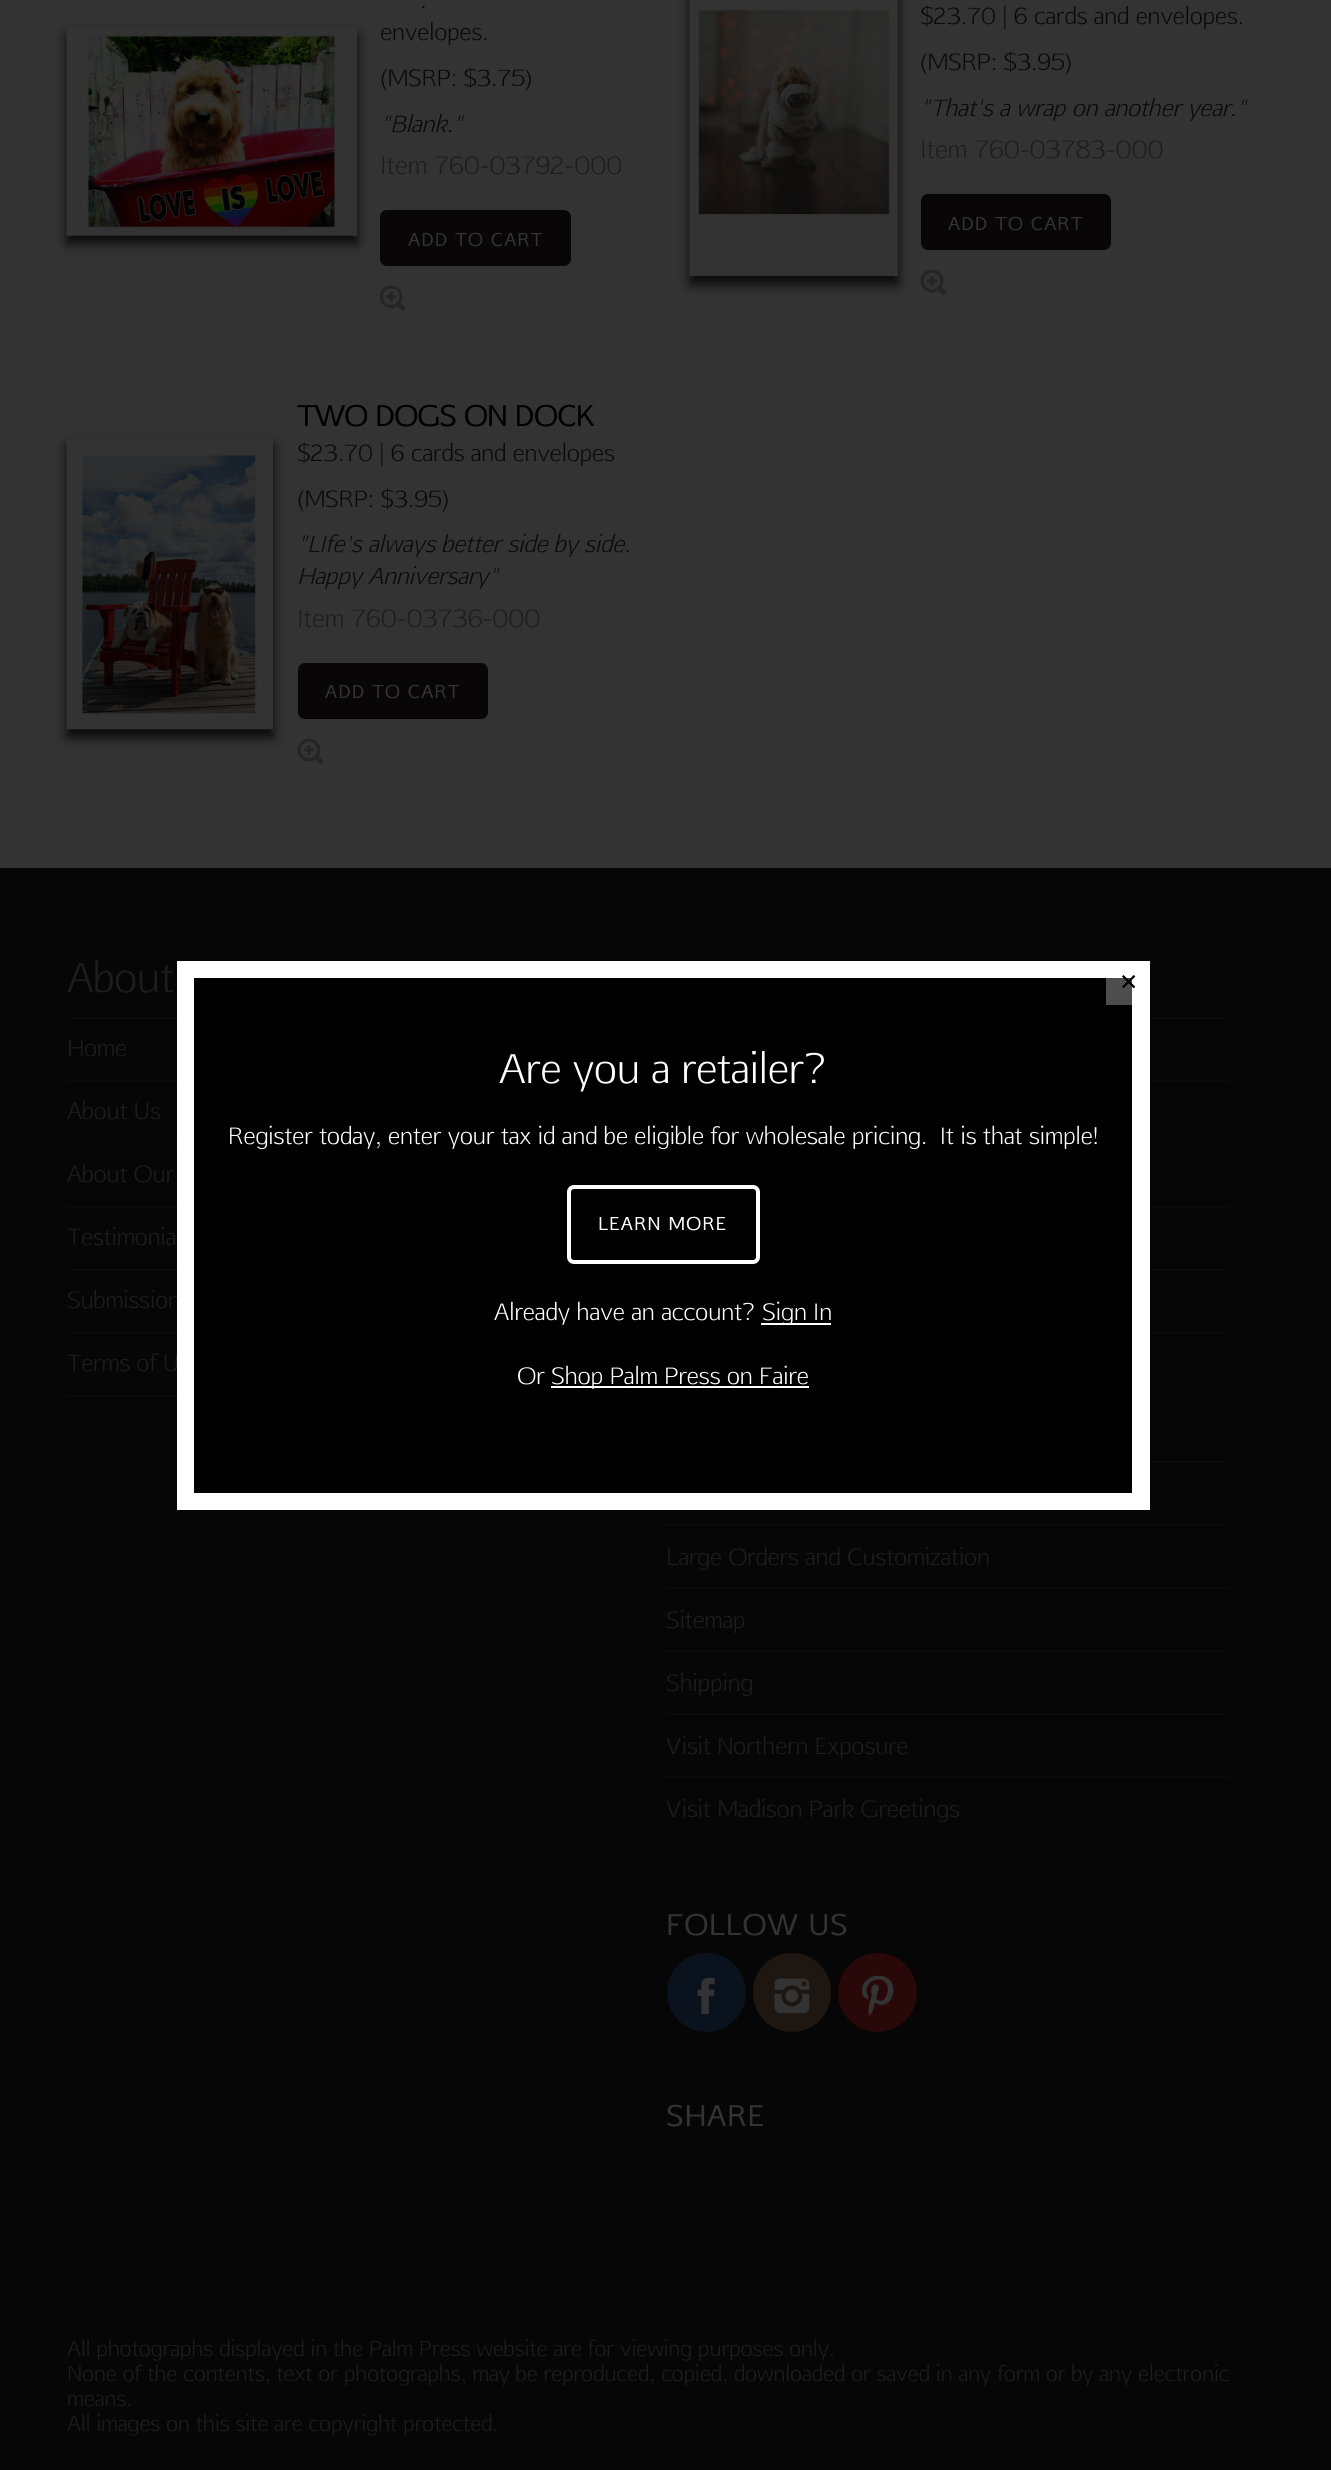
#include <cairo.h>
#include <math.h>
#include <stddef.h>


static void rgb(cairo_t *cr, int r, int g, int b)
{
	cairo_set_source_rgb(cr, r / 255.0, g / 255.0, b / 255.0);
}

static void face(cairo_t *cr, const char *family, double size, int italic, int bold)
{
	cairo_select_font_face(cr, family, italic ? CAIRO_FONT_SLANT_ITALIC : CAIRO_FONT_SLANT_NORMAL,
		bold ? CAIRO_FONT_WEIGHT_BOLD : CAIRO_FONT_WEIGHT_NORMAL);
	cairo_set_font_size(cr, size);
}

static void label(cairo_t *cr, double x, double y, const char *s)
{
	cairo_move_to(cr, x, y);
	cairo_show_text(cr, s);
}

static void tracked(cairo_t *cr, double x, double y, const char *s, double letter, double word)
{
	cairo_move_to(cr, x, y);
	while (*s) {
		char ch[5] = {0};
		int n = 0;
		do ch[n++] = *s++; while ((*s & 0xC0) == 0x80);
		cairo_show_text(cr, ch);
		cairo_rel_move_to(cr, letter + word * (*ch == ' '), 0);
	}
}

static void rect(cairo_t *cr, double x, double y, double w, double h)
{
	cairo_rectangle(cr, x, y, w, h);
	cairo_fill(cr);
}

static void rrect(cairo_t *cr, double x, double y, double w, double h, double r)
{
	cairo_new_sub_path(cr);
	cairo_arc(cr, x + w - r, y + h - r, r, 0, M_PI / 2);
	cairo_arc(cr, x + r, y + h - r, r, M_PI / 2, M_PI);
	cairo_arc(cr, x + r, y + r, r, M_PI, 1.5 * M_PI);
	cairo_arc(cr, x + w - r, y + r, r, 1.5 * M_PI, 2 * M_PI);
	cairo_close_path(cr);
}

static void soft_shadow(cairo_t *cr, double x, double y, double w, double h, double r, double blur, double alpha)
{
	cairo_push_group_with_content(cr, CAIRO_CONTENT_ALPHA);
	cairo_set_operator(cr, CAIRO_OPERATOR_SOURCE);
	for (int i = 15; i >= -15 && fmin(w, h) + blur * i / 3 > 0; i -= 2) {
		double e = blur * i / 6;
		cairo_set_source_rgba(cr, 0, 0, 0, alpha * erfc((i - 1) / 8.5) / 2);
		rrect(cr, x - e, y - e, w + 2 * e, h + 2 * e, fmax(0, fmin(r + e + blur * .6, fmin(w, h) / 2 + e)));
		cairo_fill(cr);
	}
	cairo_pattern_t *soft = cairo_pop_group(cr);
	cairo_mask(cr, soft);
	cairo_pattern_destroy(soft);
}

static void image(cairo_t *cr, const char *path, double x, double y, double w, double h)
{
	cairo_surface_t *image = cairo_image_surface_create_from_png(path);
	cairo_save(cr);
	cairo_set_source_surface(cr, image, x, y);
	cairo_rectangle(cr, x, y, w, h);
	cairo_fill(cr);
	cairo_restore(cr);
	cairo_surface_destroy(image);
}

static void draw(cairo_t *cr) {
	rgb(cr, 7, 6, 6);
	cairo_paint(cr);
	rgb(cr, 51, 51, 51);
	rect(cr, 0, 0, 1331, 868);
	rgb(cr, 0, 0, 0);
	soft_shadow(cr, 67, 35, 290, 208, 0, 6, 0.85);
	image(cr, "image0.png", 66, 27, 291, 209);
	face(cr, "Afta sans", 22.75, 0, 0);
	rgb(cr, 10, 10, 10);
	label(cr, 420, 8, ".");
	label(cr, 380, 40, "envelopes.");
	label(cr, 380, 86, "(MSRP: $3.75)");
	face(cr, "Afta sans", 22.75, 1, 0);
	label(cr, 380, 132, "\"Blank.\"");
	face(cr, "Afta sans", 24.5, 0, 0);
	rgb(cr, 29, 29, 29);
	label(cr, 380, 174, "Item 760-03792-000");
	rgb(cr, 8, 6, 6);
	rrect(cr, 380, 210, 191, 56, 7);
	cairo_fill(cr);
	face(cr, "Afta sans", 17.5, 0, 1);
	rgb(cr, 51, 51, 51);
	tracked(cr, 408, 246, "ADD TO CART", 1.75, 0);
	image(cr, "image1.png", 379, 285, 27, 27);
	rgb(cr, 0, 0, 0);
	soft_shadow(cr, 690, -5, 208, 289, 0, 6, 0.85);
	image(cr, "image2.png", 689, 0, 209, 276);
	face(cr, "Afta sans", 22.75, 0, 0);
	rgb(cr, 10, 10, 10);
	label(cr, 920, 24, "$23.70 | 6 cards and envelopes.");
	label(cr, 920, 70, "(MSRP: $3.95)");
	face(cr, "Afta sans", 22.75, 1, 0);
	label(cr, 920, 116, "\"That's a wrap on another year.\"");
	face(cr, "Afta sans", 24.5, 0, 0);
	rgb(cr, 29, 29, 29);
	label(cr, 920, 158, "Item 760-03783-000");
	rgb(cr, 8, 6, 6);
	rrect(cr, 921, 194, 190, 56, 7);
	cairo_fill(cr);
	face(cr, "Afta sans", 17.5, 0, 1);
	rgb(cr, 51, 51, 51);
	tracked(cr, 948, 230, "ADD TO CART", 1.75, 0);
	image(cr, "image3.png", 920, 269, 27, 27);
	rgb(cr, 0, 0, 0);
	soft_shadow(cr, 67, 446, 206, 291, 0, 6, 0.85);
	image(cr, "image4.png", 66, 438, 207, 292);
	face(cr, "Afta sans", 28, 0, 1);
	rgb(cr, 0, 0, 0);
	label(cr, 297, 426, "TWO DOGS ON DOCK");
	face(cr, "Afta sans", 22.75, 0, 0);
	rgb(cr, 10, 10, 10);
	label(cr, 297, 461, "$23.70 | 6 cards and envelopes");
	label(cr, 297, 507, "(MSRP: $3.95)");
	face(cr, "Afta sans", 22.75, 1, 0);
	label(cr, 297, 552, "\"LIfe's always better side by side.");
	label(cr, 297, 584, "Happy Anniversary\"");
	face(cr, "Afta sans", 24.5, 0, 0);
	rgb(cr, 29, 29, 29);
	label(cr, 297, 627, "Item 760-03736-000");
	rgb(cr, 8, 6, 6);
	rrect(cr, 298, 663, 190, 56, 7);
	cairo_fill(cr);
	face(cr, "Afta sans", 17.5, 0, 1);
	rgb(cr, 51, 51, 51);
	tracked(cr, 325, 698, "ADD TO CART", 1.75, 0);
	image(cr, "image3.png", 297, 738, 27, 27);
	face(cr, "Afta sans", 40.25, 0, 0);
	rgb(cr, 29, 29, 29);
	label(cr, 67, 992, "About");
	rgb(cr, 10, 10, 10);
	rect(cr, 67, 1017, 110, 2);
	rect(cr, 67, 1080, 110, 2);
	face(cr, "Afta sans", 22.75, 0, 0);
	rgb(cr, 29, 29, 29);
	label(cr, 67, 1056, "Home");
	rgb(cr, 10, 10, 10);
	rect(cr, 67, 1143, 110, 2);
	rgb(cr, 29, 29, 29);
	label(cr, 67, 1119, "About Us");
	rgb(cr, 10, 10, 10);
	rect(cr, 67, 1206, 110, 2);
	rgb(cr, 29, 29, 29);
	label(cr, 67, 1182, "About Our");
	rgb(cr, 10, 10, 10);
	rect(cr, 67, 1269, 110, 2);
	rgb(cr, 29, 29, 29);
	label(cr, 67, 1245, "Testimonia");
	rgb(cr, 10, 10, 10);
	rect(cr, 67, 1332, 110, 2);
	rgb(cr, 29, 29, 29);
	label(cr, 67, 1308, "Submission");
	rgb(cr, 10, 10, 10);
	rect(cr, 67, 1395, 110, 2);
	rgb(cr, 29, 29, 29);
	label(cr, 67, 1371, "Terms of U");
	rgb(cr, 10, 10, 10);
	rect(cr, 1150, 1017, 79, 2);
	rect(cr, 1150, 1080, 79, 2);
	rect(cr, 1150, 1143, 79, 2);
	rect(cr, 1150, 1206, 79, 2);
	rect(cr, 1150, 1269, 79, 2);
	rect(cr, 1150, 1332, 79, 2);
	rect(cr, 1150, 1461, 79, 2);
	rect(cr, 665, 1524, 564, 2);
	rect(cr, 665, 1587, 564, 2);
	rgb(cr, 29, 29, 29);
	label(cr, 666, 1565, "Large Orders and Customization");
	rgb(cr, 10, 10, 10);
	rect(cr, 665, 1650, 564, 2);
	rgb(cr, 29, 29, 29);
	label(cr, 666, 1628, "Sitemap");
	rgb(cr, 10, 10, 10);
	rect(cr, 665, 1713, 564, 2);
	rgb(cr, 29, 29, 29);
	label(cr, 666, 1691, "Shipping");
	rgb(cr, 10, 10, 10);
	rect(cr, 665, 1776, 564, 2);
	rgb(cr, 29, 29, 29);
	label(cr, 666, 1754, "Visit Northern Exposure");
	rgb(cr, 10, 10, 10);
	rect(cr, 665, 1839, 564, 2);
	rgb(cr, 29, 29, 29);
	label(cr, 666, 1817, "Visit Madison Park Greetings");
	face(cr, "Afta sans", 28, 0, 1);
	rgb(cr, 51, 51, 51);
	tracked(cr, 666, 1935, "FOLLOW US", 1.75, 0);
	rgb(cr, 10, 18, 29);
	cairo_new_path(cr);
	cairo_arc(cr, 706.5, 1992.5, 39.5, 0, 2 * M_PI);
	cairo_fill(cr);
	image(cr, "image5.png", 697, 1977, 18, 37);
	rgb(cr, 29, 22, 17);
	rrect(cr, 753, 1953, 78, 79, 39);
	cairo_fill(cr);
	image(cr, "image6.png", 774, 1978, 36, 36);
	rgb(cr, 40, 8, 8);
	cairo_arc(cr, 877.5, 1992.5, 39.5, 0, 2 * M_PI);
	cairo_fill(cr);
	image(cr, "image7.png", 862, 1975, 32, 41);
	rgb(cr, 51, 51, 51);
	tracked(cr, 666, 2126, "SHARE", 1.75, 0);
	face(cr, "Afta sans", 21, 0, 0);
	rgb(cr, 29, 29, 29);
	label(cr, 67, 2356, "All photographs displayed in the Palm Press website are for viewing purposes only.");
	label(cr, 67, 2381, "None of the contents, text or photographs, may be reproduced, copied, downloaded or saved in any form or by any electronic");
	label(cr, 67, 2406, "means.");
	label(cr, 67, 2431, "All images on this site are copyright protected.");
	rgb(cr, 255, 255, 255);
	rect(cr, 177, 961, 973, 549);
	rgb(cr, 0, 0, 0);
	rect(cr, 194, 978, 938, 515);
	rgb(cr, 77, 77, 77);
	rect(cr, 1106, 978, 26, 27);
	face(cr, "DejaVu Sans", 22.95, 0, 0);
	rgb(cr, 0, 0, 0);
	label(cr, 1119, 990, "✕");
	face(cr, "Afta sans", 40.25, 0, 0);
	rgb(cr, 255, 255, 255);
	label(cr, 499, 1083, "Are you a retailer?");
	face(cr, "Afta sans", 22.95, 0, 0);
	label(cr, 228, 1144, "Register today, enter your tax id and be eligible for wholesale pricing.  It is that simple!");
	rrect(cr, 569, 1187, 189, 75, 5);
	cairo_set_line_width(cr, 4);
	cairo_stroke(cr);
	face(cr, "Afta sans", 17.5, 0, 1);
	tracked(cr, 598, 1230, "LEARN MORE", 1.75, 0);
	face(cr, "Afta sans", 22.95, 0, 0);
	label(cr, 494, 1320, "Already have an account?");
	rect(cr, 761, 1323, 70, 2);
	label(cr, 762, 1320, "Sign In");
	label(cr, 517, 1384, "Or");
	rect(cr, 551, 1386, 258, 2);
	label(cr, 551, 1384, "Shop Palm Press on Faire");
}

int main(void) {
	cairo_surface_t *surface = cairo_image_surface_create(CAIRO_FORMAT_RGB24, 1331, 2470);
	cairo_t *cr = cairo_create(surface);
	cairo_font_options_t *options = cairo_font_options_create();
	cairo_font_options_set_hint_metrics(options, CAIRO_HINT_METRICS_OFF);
	cairo_font_options_set_hint_style(options, CAIRO_HINT_STYLE_NONE);
	cairo_set_font_options(cr, options);
	cairo_set_miter_limit(cr, 4);
	draw(cr);
	cairo_surface_write_to_png(surface, "render.png");
	cairo_font_options_destroy(options);
	cairo_destroy(cr);
	cairo_surface_destroy(surface);
	return 0;
}
